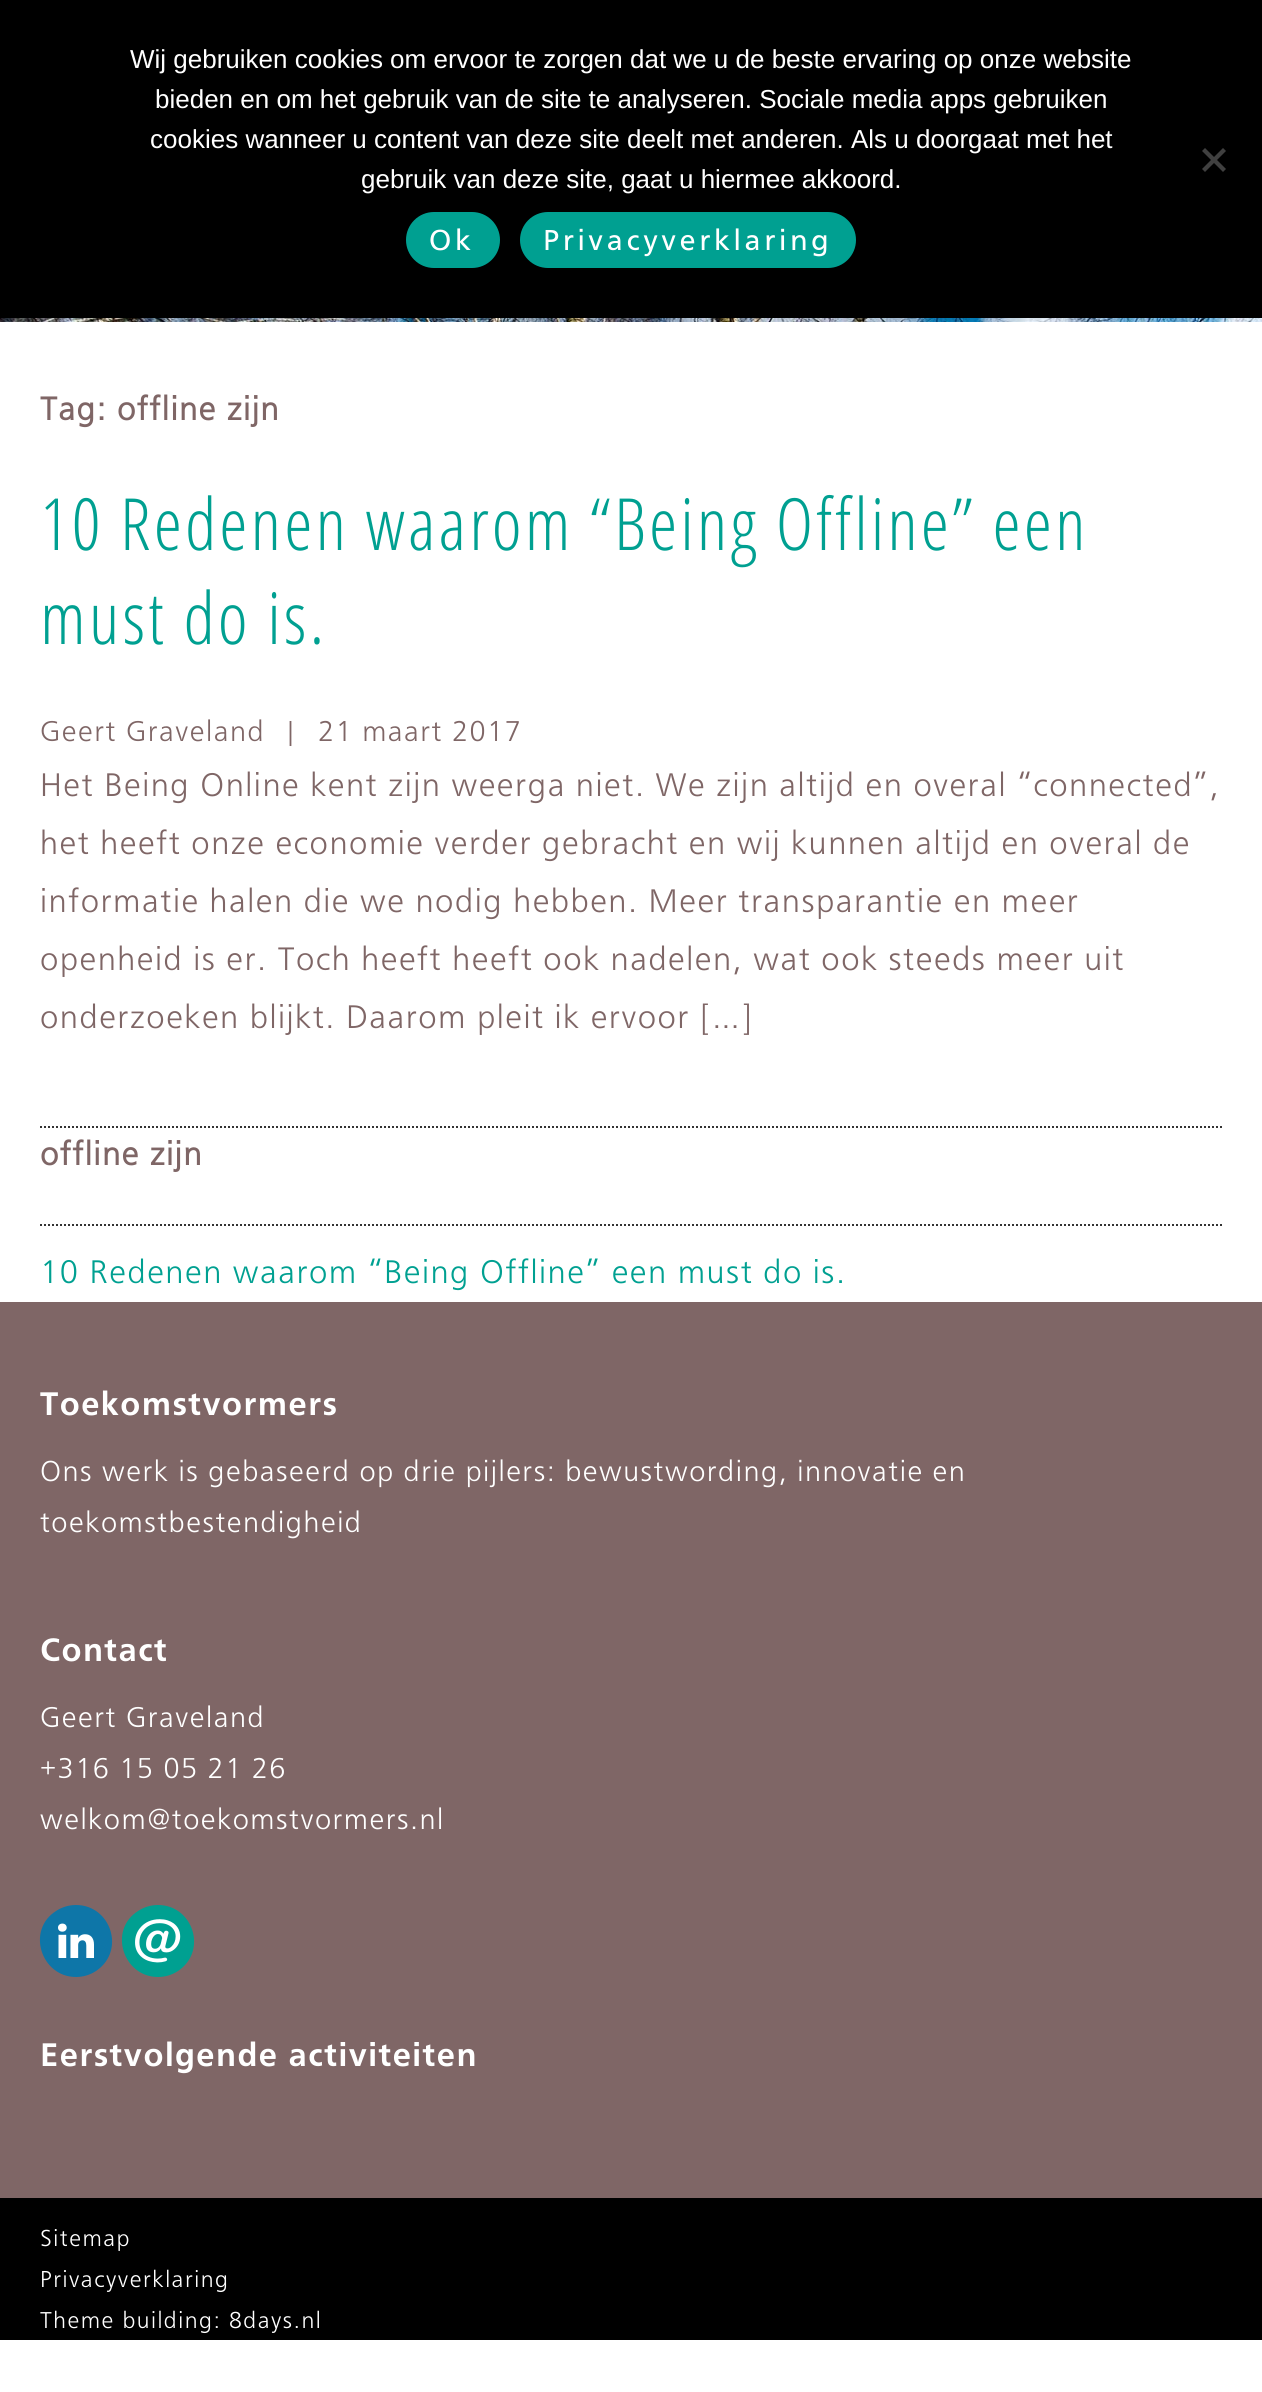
#include <cairo.h>
#include <math.h>
#include <stddef.h>


static void rgb(cairo_t *cr, int r, int g, int b)
{
	cairo_set_source_rgb(cr, r / 255.0, g / 255.0, b / 255.0);
}

static void face(cairo_t *cr, const char *family, double size, int italic, int bold)
{
	cairo_select_font_face(cr, family, italic ? CAIRO_FONT_SLANT_ITALIC : CAIRO_FONT_SLANT_NORMAL,
		bold ? CAIRO_FONT_WEIGHT_BOLD : CAIRO_FONT_WEIGHT_NORMAL);
	cairo_set_font_size(cr, size);
}

static void label(cairo_t *cr, double x, double y, const char *s)
{
	cairo_move_to(cr, x, y);
	cairo_show_text(cr, s);
}

static void tracked(cairo_t *cr, double x, double y, const char *s, double letter, double word)
{
	cairo_move_to(cr, x, y);
	while (*s) {
		char ch[5] = {0};
		int n = 0;
		do ch[n++] = *s++; while ((*s & 0xC0) == 0x80);
		cairo_show_text(cr, ch);
		cairo_rel_move_to(cr, letter + word * (*ch == ' '), 0);
	}
}

static void rect(cairo_t *cr, double x, double y, double w, double h)
{
	cairo_rectangle(cr, x, y, w, h);
	cairo_fill(cr);
}

static void rrect(cairo_t *cr, double x, double y, double w, double h, double r)
{
	cairo_new_sub_path(cr);
	cairo_arc(cr, x + w - r, y + h - r, r, 0, M_PI / 2);
	cairo_arc(cr, x + r, y + h - r, r, M_PI / 2, M_PI);
	cairo_arc(cr, x + r, y + r, r, M_PI, 1.5 * M_PI);
	cairo_arc(cr, x + w - r, y + r, r, 1.5 * M_PI, 2 * M_PI);
	cairo_close_path(cr);
}

static void image(cairo_t *cr, const char *path, double x, double y, double w, double h)
{
	cairo_surface_t *image = cairo_image_surface_create_from_png(path);
	cairo_save(cr);
	cairo_set_source_surface(cr, image, x, y);
	cairo_rectangle(cr, x, y, w, h);
	cairo_fill(cr);
	cairo_restore(cr);
	cairo_surface_destroy(image);
}

static void draw(cairo_t *cr) {
	rgb(cr, 255, 255, 255);
	cairo_paint(cr);
	rgb(cr, 0, 0, 0);
	rect(cr, 0, 0, 1262, 318);
	face(cr, "Liberation Sans", 26, 0, 0);
	rgb(cr, 255, 255, 255);
	label(cr, 130, 68, "Wij gebruiken cookies om ervoor te zorgen dat we u de beste ervaring op onze website");
	label(cr, 155, 108, "bieden en om het gebruik van de site te analyseren. Sociale media apps gebruiken");
	label(cr, 150, 148, "cookies wanneer u content van deze site deelt met anderen. Als u doorgaat met het");
	label(cr, 361, 188, "gebruik van deze site, gaat u hiermee akkoord.");
	rgb(cr, 64, 64, 64);
	cairo_new_path(cr);
	cairo_move_to(cr, 1223, 148);
	cairo_line_to(cr, 1226, 151);
	cairo_line_to(cr, 1205, 172);
	cairo_line_to(cr, 1202, 169);
	cairo_close_path(cr);
	cairo_fill(cr);
	cairo_new_path(cr);
	cairo_move_to(cr, 1202, 151);
	cairo_line_to(cr, 1205, 148);
	cairo_line_to(cr, 1226, 169);
	cairo_line_to(cr, 1223, 172);
	cairo_close_path(cr);
	cairo_fill(cr);
	rgb(cr, 0, 160, 145);
	rrect(cr, 406, 212, 94, 56, 28);
	cairo_fill(cr);
	face(cr, "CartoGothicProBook", 30, 0, 0);
	rgb(cr, 255, 255, 255);
	tracked(cr, 429, 250, "Ok", 4, 0);
	rgb(cr, 0, 160, 145);
	rrect(cr, 520, 212, 336, 56, 28);
	cairo_fill(cr);
	rgb(cr, 255, 255, 255);
	tracked(cr, 543, 250, "Privacyverklaring", 4, 0);
	image(cr, "image0.png", 0, 318, 1262, 4);
	face(cr, "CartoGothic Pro", 34, 0, 1);
	rgb(cr, 127, 102, 102);
	tracked(cr, 40, 420, "Tag: offline zijn", 1.5, 0);
	face(cr, "Open Sans Light", 72, 0, 0);
	rgb(cr, 0, 160, 145);
	tracked(cr, 40, 550, "10 Redenen waarom “Being Offline” een", 3, 0);
	tracked(cr, 40, 644, "must do is.", 3, 0);
	face(cr, "CartoGothic Pro Light", 30, 0, 0);
	rgb(cr, 127, 102, 102);
	tracked(cr, 40, 741, "Geert Graveland  |", 1.5, 0);
	tracked(cr, 318, 741, "21 maart 2017", 1.5, 0);
	face(cr, "CartoGothic Pro Light", 34, 0, 0);
	tracked(cr, 40, 796, "Het Being Online kent zijn weerga niet. We zijn altijd en overal “connected”,", 1.5, 0);
	tracked(cr, 40, 854, "het heeft onze economie verder gebracht en wij kunnen altijd en overal de", 1.5, 0);
	tracked(cr, 40, 912, "informatie halen die we nodig hebben. Meer transparantie en meer", 1.5, 0);
	tracked(cr, 40, 970, "openheid is er. Toch heeft heeft ook nadelen, wat ook steeds meer uit", 1.5, 0);
	tracked(cr, 40, 1028, "onderzoeken blijkt. Daarom pleit ik ervoor […]", 1.5, 0);
	cairo_new_path(cr);
	cairo_move_to(cr, 40, 1127);
	cairo_line_to(cr, 1222, 1127);
	rgb(cr, 51, 51, 51);
	cairo_set_dash(cr, (double[]){2, 2}, 2, 0);
	cairo_stroke(cr);
	face(cr, "CartoGothic Pro", 34, 0, 1);
	rgb(cr, 127, 102, 102);
	tracked(cr, 40, 1165, "offline zijn", 1.5, 0);
	cairo_new_path(cr);
	cairo_move_to(cr, 40, 1225);
	cairo_line_to(cr, 1222, 1225);
	rgb(cr, 51, 51, 51);
	cairo_stroke(cr);
	face(cr, "CartoGothic Pro Light", 34, 0, 0);
	rgb(cr, 0, 160, 145);
	tracked(cr, 40, 1283, "10 Redenen waarom “Being Offline” een must do is.", 1.5, 0);
	rgb(cr, 127, 102, 102);
	rect(cr, 0, 1302, 1262, 896);
	face(cr, "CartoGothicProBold", 34, 0, 1);
	rgb(cr, 255, 255, 255);
	tracked(cr, 40, 1415, "Toekomstvormers", 1.5, 0);
	face(cr, "CartoGothic Pro Light", 30, 0, 0);
	tracked(cr, 40, 1481, "Ons werk is gebaseerd op drie pijlers: bewustwording, innovatie en", 1.5, 0);
	tracked(cr, 40, 1532, "toekomstbestendigheid", 1.5, 0);
	face(cr, "CartoGothicProBold", 34, 0, 1);
	tracked(cr, 40, 1661, "Contact", 1.5, 0);
	face(cr, "CartoGothic Pro Light", 30, 0, 0);
	tracked(cr, 40, 1727, "Geert Graveland", 1.5, 0);
	tracked(cr, 40, 1778, "+316 15 05 21 26", 1.5, 0);
	tracked(cr, 40, 1829, "welkom@toekomstvormers.nl", 1.5, 0);
	rgb(cr, 14, 118, 168);
	cairo_new_path(cr);
	cairo_move_to(cr, 76, 1977);
	cairo_curve_to(cr, 83, 1977, 90, 1975, 96, 1971);
	cairo_curve_to(cr, 126, 1951, 111, 1905, 76, 1905);
	cairo_curve_to(cr, 69, 1905, 62, 1907, 56, 1911);
	cairo_curve_to(cr, 26, 1930, 41, 1977, 76, 1977);
	cairo_close_path(cr);
	cairo_fill(cr);
	image(cr, "image1.png", 58, 1923, 36, 35);
	rgb(cr, 0, 160, 145);
	cairo_new_path(cr);
	cairo_move_to(cr, 158, 1977);
	cairo_curve_to(cr, 165, 1977, 172, 1975, 178, 1971);
	cairo_curve_to(cr, 208, 1951, 193, 1905, 158, 1905);
	cairo_curve_to(cr, 151, 1905, 144, 1907, 138, 1911);
	cairo_curve_to(cr, 108, 1930, 123, 1977, 158, 1977);
	cairo_close_path(cr);
	cairo_fill(cr);
	image(cr, "image2.png", 135, 1919, 46, 44);
	face(cr, "CartoGothicProBold", 34, 0, 1);
	rgb(cr, 255, 255, 255);
	tracked(cr, 40, 2066, "Eerstvolgende activiteiten", 1.5, 0);
	rgb(cr, 0, 0, 0);
	rect(cr, 0, 2198, 1262, 142);
	face(cr, "CartoGothic Pro Light", 24, 0, 0);
	rgb(cr, 255, 255, 255);
	tracked(cr, 40, 2246, "Sitemap", 1.5, 0);
	tracked(cr, 40, 2287, "Privacyverklaring", 1.5, 0);
	tracked(cr, 40, 2328, "Theme building: 8days.nl", 1.5, 0);
}

int main(void) {
	cairo_surface_t *surface = cairo_image_surface_create(CAIRO_FORMAT_RGB24, 1262, 2392);
	cairo_t *cr = cairo_create(surface);
	cairo_font_options_t *options = cairo_font_options_create();
	cairo_font_options_set_hint_metrics(options, CAIRO_HINT_METRICS_OFF);
	cairo_font_options_set_hint_style(options, CAIRO_HINT_STYLE_NONE);
	cairo_set_font_options(cr, options);
	cairo_set_miter_limit(cr, 4);
	draw(cr);
	cairo_surface_write_to_png(surface, "render.png");
	cairo_font_options_destroy(options);
	cairo_destroy(cr);
	cairo_surface_destroy(surface);
	return 0;
}
